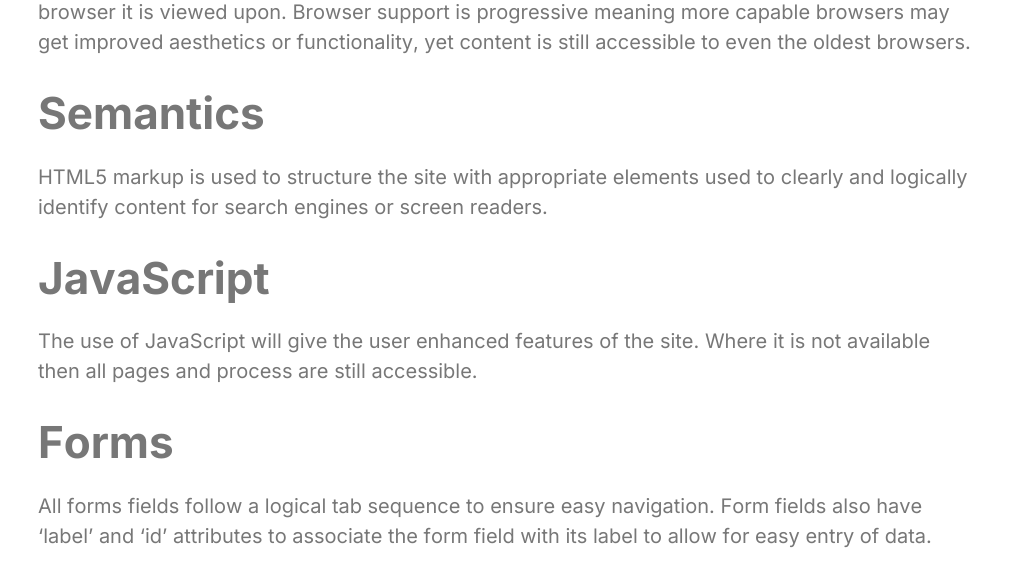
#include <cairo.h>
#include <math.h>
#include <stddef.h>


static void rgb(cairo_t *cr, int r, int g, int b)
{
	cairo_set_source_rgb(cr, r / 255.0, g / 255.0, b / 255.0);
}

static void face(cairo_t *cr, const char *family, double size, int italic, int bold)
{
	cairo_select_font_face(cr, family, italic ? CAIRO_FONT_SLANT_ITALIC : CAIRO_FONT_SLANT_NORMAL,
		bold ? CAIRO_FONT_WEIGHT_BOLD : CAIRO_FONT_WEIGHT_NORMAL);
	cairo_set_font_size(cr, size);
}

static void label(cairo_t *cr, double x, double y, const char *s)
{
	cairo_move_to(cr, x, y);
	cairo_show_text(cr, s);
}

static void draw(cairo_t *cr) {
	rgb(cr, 255, 255, 255);
	cairo_paint(cr);
	face(cr, "Inter", 20, 0, 0);
	rgb(cr, 119, 119, 119);
	label(cr, 38, 19, "browser it is viewed upon. Browser support is progressive meaning more capable browsers may");
	label(cr, 38, 49, "get improved aesthetics or functionality, yet content is still accessible to even the oldest browsers.");
	face(cr, "Inter", 44, 0, 1);
	label(cr, 38, 129, "Semantics");
	face(cr, "Inter", 20, 0, 0);
	label(cr, 38, 184, "HTML5 markup is used to structure the site with appropriate elements used to clearly and logically");
	label(cr, 38, 214, "identify content for search engines or screen readers.");
	face(cr, "Inter", 44, 0, 1);
	label(cr, 38, 294, "JavaScript");
	face(cr, "Inter", 20, 0, 0);
	label(cr, 38, 348, "The use of JavaScript will give the user enhanced features of the site. Where it is not available");
	label(cr, 38, 378, "then all pages and process are still accessible.");
	face(cr, "Inter", 44, 0, 1);
	label(cr, 38, 458, "Forms");
	face(cr, "Inter", 20, 0, 0);
	label(cr, 38, 513, "All forms fields follow a logical tab sequence to ensure easy navigation. Form fields also have");
	label(cr, 38, 543, "‘label’ and ‘id’ attributes to associate the form field with its label to allow for easy entry of data.");
}

int main(void) {
	cairo_surface_t *surface = cairo_image_surface_create(CAIRO_FORMAT_RGB24, 1009, 569);
	cairo_t *cr = cairo_create(surface);
	cairo_font_options_t *options = cairo_font_options_create();
	cairo_font_options_set_hint_metrics(options, CAIRO_HINT_METRICS_OFF);
	cairo_font_options_set_hint_style(options, CAIRO_HINT_STYLE_NONE);
	cairo_set_font_options(cr, options);
	cairo_set_miter_limit(cr, 4);
	draw(cr);
	cairo_surface_write_to_png(surface, "render.png");
	cairo_font_options_destroy(options);
	cairo_destroy(cr);
	cairo_surface_destroy(surface);
	return 0;
}
